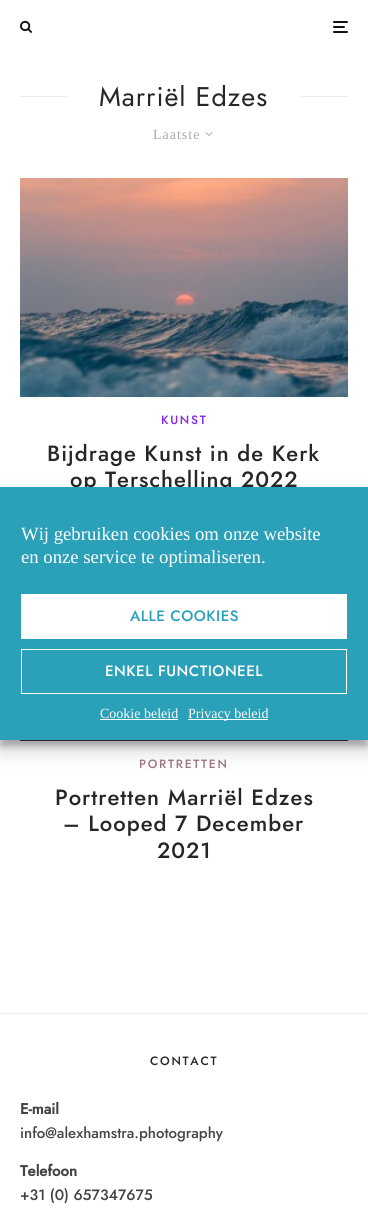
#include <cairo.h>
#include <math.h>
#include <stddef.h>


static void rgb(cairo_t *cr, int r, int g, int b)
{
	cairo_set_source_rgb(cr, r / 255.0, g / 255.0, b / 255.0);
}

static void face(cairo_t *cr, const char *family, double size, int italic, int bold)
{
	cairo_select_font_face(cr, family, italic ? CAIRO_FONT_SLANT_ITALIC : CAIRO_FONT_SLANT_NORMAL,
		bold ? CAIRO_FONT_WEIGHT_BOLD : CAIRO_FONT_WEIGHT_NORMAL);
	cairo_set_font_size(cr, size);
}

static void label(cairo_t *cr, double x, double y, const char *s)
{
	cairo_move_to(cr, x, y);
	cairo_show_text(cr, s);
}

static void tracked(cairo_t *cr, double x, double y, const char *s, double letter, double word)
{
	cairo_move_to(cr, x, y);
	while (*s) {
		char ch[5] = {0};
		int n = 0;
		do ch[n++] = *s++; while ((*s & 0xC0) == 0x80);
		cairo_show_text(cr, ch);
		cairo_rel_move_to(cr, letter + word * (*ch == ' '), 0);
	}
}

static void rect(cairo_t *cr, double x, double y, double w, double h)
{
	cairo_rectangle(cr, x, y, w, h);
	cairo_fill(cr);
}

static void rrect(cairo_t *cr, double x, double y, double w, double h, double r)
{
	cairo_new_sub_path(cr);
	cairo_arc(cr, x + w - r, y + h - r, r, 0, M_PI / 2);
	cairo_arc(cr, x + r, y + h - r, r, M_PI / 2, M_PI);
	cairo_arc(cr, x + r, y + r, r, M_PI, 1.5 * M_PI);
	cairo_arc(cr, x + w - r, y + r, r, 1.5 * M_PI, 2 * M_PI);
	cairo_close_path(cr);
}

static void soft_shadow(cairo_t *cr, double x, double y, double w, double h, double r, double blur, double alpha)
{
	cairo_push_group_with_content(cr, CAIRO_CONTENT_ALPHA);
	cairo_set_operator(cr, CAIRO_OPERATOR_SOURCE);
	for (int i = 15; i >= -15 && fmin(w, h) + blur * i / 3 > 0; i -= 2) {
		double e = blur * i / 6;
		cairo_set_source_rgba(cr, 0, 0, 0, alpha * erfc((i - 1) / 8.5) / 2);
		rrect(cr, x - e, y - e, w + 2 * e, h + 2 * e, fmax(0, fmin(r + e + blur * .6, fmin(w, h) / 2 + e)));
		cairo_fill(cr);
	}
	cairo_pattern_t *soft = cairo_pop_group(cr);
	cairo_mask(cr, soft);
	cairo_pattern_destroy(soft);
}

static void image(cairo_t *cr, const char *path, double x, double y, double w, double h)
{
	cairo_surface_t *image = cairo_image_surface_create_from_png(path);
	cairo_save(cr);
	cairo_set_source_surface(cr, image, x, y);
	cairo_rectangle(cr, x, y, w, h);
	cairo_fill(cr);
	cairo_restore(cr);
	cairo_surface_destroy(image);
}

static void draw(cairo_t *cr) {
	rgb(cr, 255, 255, 255);
	cairo_paint(cr);
	image(cr, "image0.png", 20, 20, 12, 13);
	rgb(cr, 17, 17, 17);
	rrect(cr, 333, 26, 12, 2, 1);
	cairo_fill(cr);
	rrect(cr, 333, 21, 15, 2, 1);
	cairo_fill(cr);
	rrect(cr, 333, 31, 15, 2, 1);
	cairo_fill(cr);
	rgb(cr, 238, 238, 238);
	rect(cr, 20, 96, 49, 1);
	face(cr, "Jost", 27, 0, 0);
	rgb(cr, 38, 38, 38);
	tracked(cr, 99, 106, "Marriël Edzes", 1, 0);
	rgb(cr, 238, 238, 238);
	rect(cr, 299, 96, 49, 1);
	face(cr, "Liberation Serif", 14, 0, 0);
	rgb(cr, 170, 170, 170);
	tracked(cr, 153, 139, "Laatste", 1, 0);
	image(cr, "image1.png", 205, 132, 8, 4);
	image(cr, "image2.png", 20, 178, 328, 219);
	face(cr, "Jost Medium", 12, 0, 0);
	rgb(cr, 130, 36, 227);
	tracked(cr, 161, 424, "KUNST", 1.75, 0);
	face(cr, "Jost Medium", 22, 0, 0);
	rgb(cr, 38, 38, 38);
	tracked(cr, 47, 461, "Bijdrage Kunst in de Kerk", 1, 0);
	tracked(cr, 70, 487, "op Terschelling 2022", 1, 0);
	image(cr, "image3.png", 20, 740, 328, 1);
	face(cr, "Jost Medium", 12, 0, 0);
	rgb(cr, 158, 118, 130);
	tracked(cr, 139, 768, "PORTRETTEN", 1.75, 0);
	face(cr, "Jost Medium", 22, 0, 0);
	rgb(cr, 38, 38, 38);
	tracked(cr, 55, 805, "Portretten Marriël Edzes", 1, 0);
	tracked(cr, 63, 831, "– Looped 7 December", 1, 0);
	tracked(cr, 157, 858, "2021", 1, 0);
	rgb(cr, 238, 238, 238);
	rect(cr, 0, 1013, 368, 1);
	face(cr, "Jost Medium", 12, 0, 0);
	rgb(cr, 38, 38, 38);
	tracked(cr, 150, 1065, "CONTACT", 1.75, 0);
	face(cr, "Jost", 15, 0, 1);
	rgb(cr, 68, 68, 68);
	label(cr, 20, 1114, "E-mail");
	face(cr, "Jost Medium", 15, 0, 0);
	label(cr, 20, 1138, "info@alexhamstra.photography");
	face(cr, "Jost", 15, 0, 1);
	label(cr, 20, 1176, "Telefoon");
	face(cr, "Jost Medium", 15, 0, 0);
	label(cr, 20, 1200, "+31 (0) 657347675");
	rgb(cr, 0, 0, 0);
	soft_shadow(cr, 0, 493, 368, 253, 0, 3, 0.23);
	soft_shadow(cr, 0, 497, 368, 253, 0, 10, 0.19);
	rgb(cr, 42, 161, 185);
	rect(cr, 0, 487, 368, 253);
	face(cr, "Liberation Serif", 18.7, 0, 0);
	rgb(cr, 255, 255, 255);
	label(cr, 21, 540, "Wij gebruiken cookies om onze website");
	label(cr, 21, 563, "en onze service te optimaliseren.");
	rect(cr, 21, 594, 326, 45);
	face(cr, "Jost Medium", 15, 0, 0);
	rgb(cr, 42, 161, 185);
	tracked(cr, 130, 621, "ALLE COOKIES", 0.5, 0);
	cairo_rectangle(cr, 21.5, 649.5, 325, 44);
	rgb(cr, 255, 255, 255);
	cairo_set_line_width(cr, 1);
	cairo_stroke(cr);
	tracked(cr, 105, 676, "ENKEL FUNCTIONEEL", 0.5, 0);
	face(cr, "Liberation Serif", 14, 0, 0);
	label(cr, 100, 718, "Cookie beleid");
	rect(cr, 100, 719, 78, 1);
	rect(cr, 188, 719, 80, 1);
	label(cr, 188, 718, "Privacy beleid");
}

int main(void) {
	cairo_surface_t *surface = cairo_image_surface_create(CAIRO_FORMAT_RGB24, 368, 1227);
	cairo_t *cr = cairo_create(surface);
	cairo_font_options_t *options = cairo_font_options_create();
	cairo_font_options_set_hint_metrics(options, CAIRO_HINT_METRICS_OFF);
	cairo_font_options_set_hint_style(options, CAIRO_HINT_STYLE_NONE);
	cairo_set_font_options(cr, options);
	cairo_set_miter_limit(cr, 4);
	draw(cr);
	cairo_surface_write_to_png(surface, "render.png");
	cairo_font_options_destroy(options);
	cairo_destroy(cr);
	cairo_surface_destroy(surface);
	return 0;
}
